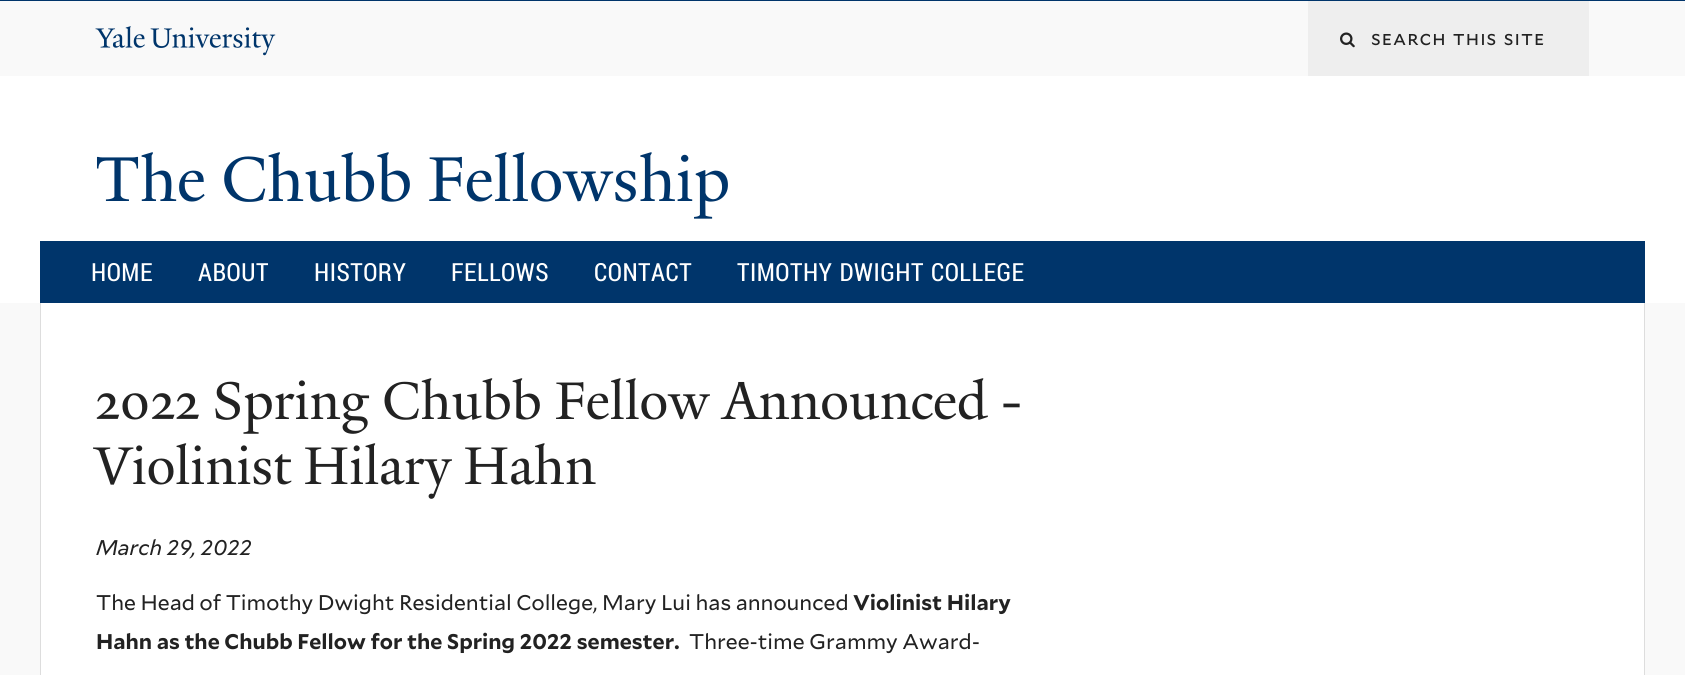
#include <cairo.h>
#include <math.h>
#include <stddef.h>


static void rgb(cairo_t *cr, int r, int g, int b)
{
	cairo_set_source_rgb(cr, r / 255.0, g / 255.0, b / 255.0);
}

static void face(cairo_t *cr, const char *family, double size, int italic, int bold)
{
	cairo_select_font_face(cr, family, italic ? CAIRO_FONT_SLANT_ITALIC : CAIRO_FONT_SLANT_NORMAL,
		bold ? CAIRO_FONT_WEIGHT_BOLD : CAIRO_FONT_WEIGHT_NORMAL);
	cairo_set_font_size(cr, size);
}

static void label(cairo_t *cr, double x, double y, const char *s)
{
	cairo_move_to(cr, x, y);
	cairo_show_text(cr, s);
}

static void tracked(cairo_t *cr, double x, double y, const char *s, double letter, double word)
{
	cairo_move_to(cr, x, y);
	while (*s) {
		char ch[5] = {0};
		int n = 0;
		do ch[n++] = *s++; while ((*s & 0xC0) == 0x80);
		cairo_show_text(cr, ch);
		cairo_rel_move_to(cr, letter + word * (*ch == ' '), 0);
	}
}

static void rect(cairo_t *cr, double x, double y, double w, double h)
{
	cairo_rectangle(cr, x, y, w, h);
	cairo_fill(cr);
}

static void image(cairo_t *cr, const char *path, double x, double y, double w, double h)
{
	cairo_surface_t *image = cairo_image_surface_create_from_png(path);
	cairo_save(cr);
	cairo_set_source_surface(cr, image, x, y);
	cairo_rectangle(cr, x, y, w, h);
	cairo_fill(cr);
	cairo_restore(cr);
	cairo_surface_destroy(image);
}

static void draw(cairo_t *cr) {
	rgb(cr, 255, 255, 255);
	cairo_paint(cr);
	rgb(cr, 0, 53, 107);
	rect(cr, 0, 0, 1685, 1);
	rgb(cr, 249, 249, 249);
	rect(cr, 0, 1, 1685, 75);
	image(cr, "image0.png", 95, 26, 50, 22);
	image(cr, "image1.png", 150, 27, 126, 29);
	rgb(cr, 238, 238, 238);
	rect(cr, 1308, 1, 281, 75);
	image(cr, "image2.png", 1340, 32, 15, 16);
	face(cr, "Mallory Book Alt", 19.75, 0, 0);
	rgb(cr, 34, 34, 34);
	tracked(cr, 1371, 45, "search this site", 1, 1);
	face(cr, "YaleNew", 68.75, 0, 0);
	rgb(cr, 0, 53, 107);
	label(cr, 95, 201, "The Chubb Fellowship");
	rect(cr, 40, 241, 1605, 62);
	face(cr, "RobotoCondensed", 25, 0, 0);
	rgb(cr, 255, 255, 255);
	tracked(cr, 91, 281, "HOME", 0.5, 0);
	tracked(cr, 198, 281, "ABOUT", 0.5, 0);
	tracked(cr, 314, 281, "HISTORY", 0.5, 0);
	tracked(cr, 451, 281, "FELLOWS", 0.5, 0);
	tracked(cr, 594, 281, "CONTACT", 0.5, 0);
	tracked(cr, 737, 281, "TIMOTHY DWIGHT COLLEGE", 0.5, 1);
	rgb(cr, 249, 249, 249);
	rect(cr, 0, 303, 1685, 372);
	rgb(cr, 255, 255, 255);
	rect(cr, 41, 303, 1603, 372);
	rgb(cr, 221, 221, 221);
	rect(cr, 1644, 303, 1, 372);
	rect(cr, 40, 303, 1, 372);
	face(cr, "YaleNew", 57.5, 0, 0);
	rgb(cr, 34, 34, 34);
	label(cr, 95, 419, "2022 Spring Chubb Fellow Announced -");
	tracked(cr, 95, 484, "Violinist Hilary Hahn", 0, -1);
	face(cr, "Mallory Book", 21.25, 1, 0);
	label(cr, 96, 555, "March 29, 2022");
	face(cr, "Mallory Book", 21.25, 0, 0);
	label(cr, 96, 610, "The Head of Timothy Dwight Residential College, Mary Lui has announced");
	face(cr, "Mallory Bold", 21.25, 0, 1);
	label(cr, 853, 610, "Violinist Hilary");
	label(cr, 96, 649, "Hahn as the Chubb Fellow for the Spring 2022 semester.");
	face(cr, "Mallory Book", 21.25, 0, 0);
	label(cr, 689, 649, "Three-time Grammy Award-");
}

int main(void) {
	cairo_surface_t *surface = cairo_image_surface_create(CAIRO_FORMAT_RGB24, 1685, 675);
	cairo_t *cr = cairo_create(surface);
	cairo_font_options_t *options = cairo_font_options_create();
	cairo_font_options_set_hint_metrics(options, CAIRO_HINT_METRICS_OFF);
	cairo_font_options_set_hint_style(options, CAIRO_HINT_STYLE_NONE);
	cairo_set_font_options(cr, options);
	cairo_set_miter_limit(cr, 4);
	draw(cr);
	cairo_surface_write_to_png(surface, "render.png");
	cairo_font_options_destroy(options);
	cairo_destroy(cr);
	cairo_surface_destroy(surface);
	return 0;
}
